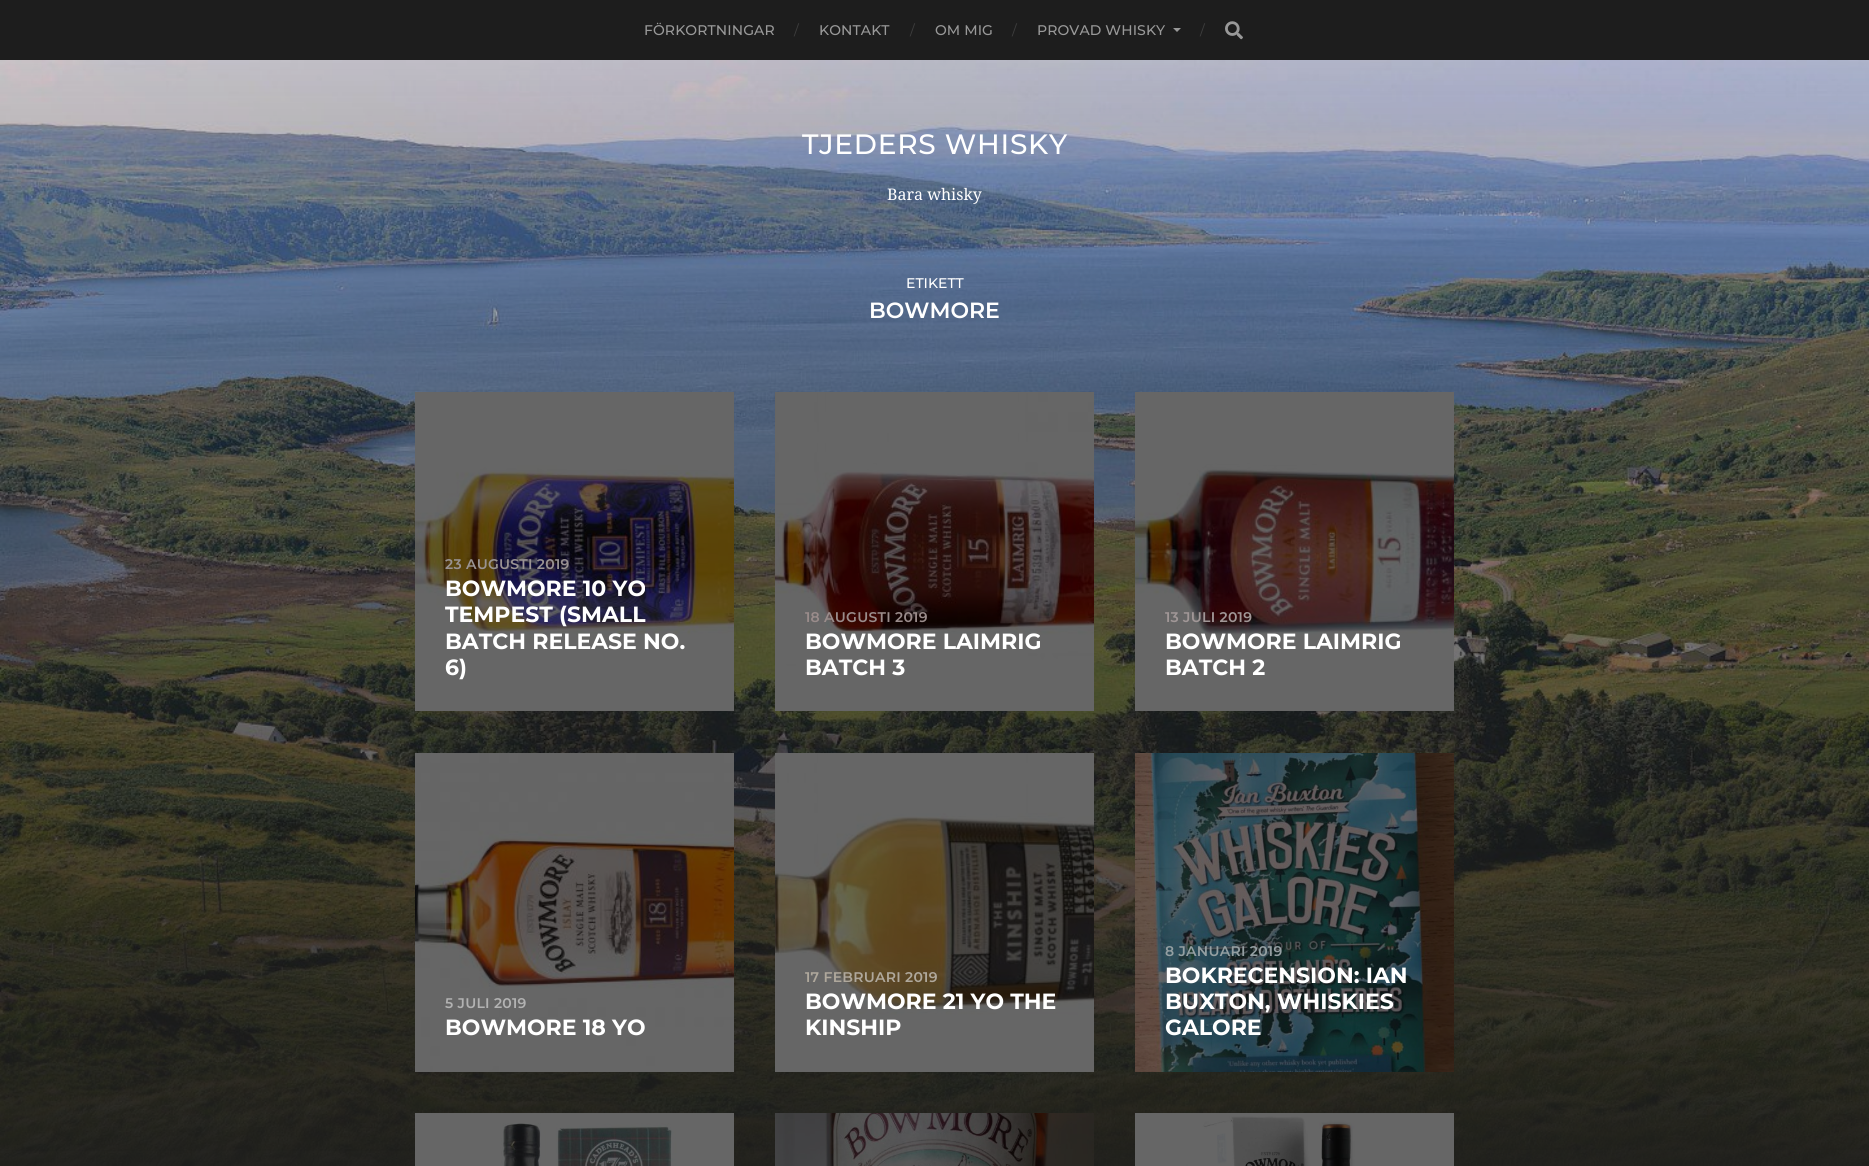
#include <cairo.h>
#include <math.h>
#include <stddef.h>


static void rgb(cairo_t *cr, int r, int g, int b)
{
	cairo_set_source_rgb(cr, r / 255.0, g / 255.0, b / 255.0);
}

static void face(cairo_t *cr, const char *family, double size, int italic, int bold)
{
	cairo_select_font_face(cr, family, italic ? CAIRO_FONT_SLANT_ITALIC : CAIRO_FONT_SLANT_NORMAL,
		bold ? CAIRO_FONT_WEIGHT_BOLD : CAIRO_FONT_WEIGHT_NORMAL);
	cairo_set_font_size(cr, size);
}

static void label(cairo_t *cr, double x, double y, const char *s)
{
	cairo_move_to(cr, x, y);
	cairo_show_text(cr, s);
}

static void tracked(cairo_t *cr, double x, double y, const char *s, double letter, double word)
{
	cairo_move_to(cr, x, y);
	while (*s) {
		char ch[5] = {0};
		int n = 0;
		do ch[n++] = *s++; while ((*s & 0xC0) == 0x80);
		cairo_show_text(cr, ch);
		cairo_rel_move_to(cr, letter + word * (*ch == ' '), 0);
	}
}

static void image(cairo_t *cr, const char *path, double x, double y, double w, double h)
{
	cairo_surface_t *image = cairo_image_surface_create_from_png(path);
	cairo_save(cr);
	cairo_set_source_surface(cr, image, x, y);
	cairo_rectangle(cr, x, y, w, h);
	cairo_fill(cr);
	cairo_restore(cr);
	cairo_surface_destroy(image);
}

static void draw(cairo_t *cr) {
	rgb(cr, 29, 29, 29);
	cairo_paint(cr);
	face(cr, "Montserrat Medium", 14, 0, 0);
	rgb(cr, 153, 153, 153);
	tracked(cr, 644, 35, "FÖRKORTNINGAR", 0.1, 0);
	face(cr, "Montserrat", 14, 0, 0);
	rgb(cr, 61, 61, 61);
	label(cr, 794, 35, "/");
	face(cr, "Montserrat Medium", 14, 0, 0);
	rgb(cr, 153, 153, 153);
	tracked(cr, 819, 35, "KONTAKT", 0.1, 0);
	face(cr, "Montserrat", 14, 0, 0);
	rgb(cr, 61, 61, 61);
	label(cr, 910, 35, "/");
	face(cr, "Montserrat Medium", 14, 0, 0);
	rgb(cr, 153, 153, 153);
	tracked(cr, 935, 35, "OM MIG", 0.1, 0);
	face(cr, "Montserrat", 14, 0, 0);
	rgb(cr, 61, 61, 61);
	label(cr, 1012, 35, "/");
	face(cr, "Montserrat Medium", 14, 0, 0);
	rgb(cr, 153, 153, 153);
	tracked(cr, 1037, 35, "PROVAD WHISKY", 0.1, 0);
	cairo_new_path(cr);
	cairo_move_to(cr, 1173, 28);
	cairo_line_to(cr, 1181, 28);
	cairo_line_to(cr, 1177, 32);
	cairo_close_path(cr);
	cairo_fill(cr);
	face(cr, "Montserrat", 14, 0, 0);
	rgb(cr, 61, 61, 61);
	label(cr, 1200, 35, "/");
	image(cr, "image0.png", 1225, 21, 18, 19);
	image(cr, "image1.png", 0, 60, 1869, 1106);
	face(cr, "Montserrat Medium", 28, 0, 0);
	rgb(cr, 255, 255, 255);
	tracked(cr, 802, 154, "TJEDERS WHISKY", 0.75, 0);
	face(cr, "Droid Serif", 16, 0, 0);
	label(cr, 887, 200, "Bara whisky");
	face(cr, "Montserrat Medium", 14, 0, 0);
	label(cr, 906, 288, "ETIKETT");
	face(cr, "Montserrat SemiBold", 22, 0, 0);
	label(cr, 869, 318, "BOWMORE");
	image(cr, "image2.png", 415, 392, 319, 319);
	face(cr, "Montserrat SemiBold", 14, 0, 0);
	rgb(cr, 153, 147, 147);
	tracked(cr, 445, 569, "23 AUGUSTI 2019", 0.25, 0);
	face(cr, "Montserrat", 22, 0, 1);
	rgb(cr, 255, 255, 255);
	label(cr, 445, 596, "BOWMORE 10 YO");
	label(cr, 445, 622, "TEMPEST (SMALL");
	label(cr, 445, 649, "BATCH RELEASE NO.");
	label(cr, 445, 675, "6)");
	image(cr, "image3.png", 775, 392, 319, 319);
	face(cr, "Montserrat SemiBold", 14, 0, 0);
	rgb(cr, 154, 140, 139);
	tracked(cr, 805, 622, "18 AUGUSTI 2019", 0.25, 0);
	face(cr, "Montserrat", 22, 0, 1);
	rgb(cr, 255, 255, 255);
	label(cr, 805, 649, "BOWMORE LAIMRIG");
	label(cr, 805, 675, "BATCH 3");
	image(cr, "image4.png", 1135, 392, 319, 319);
	face(cr, "Montserrat SemiBold", 14, 0, 0);
	rgb(cr, 161, 151, 151);
	tracked(cr, 1165, 622, "13 JULI 2019", 0.25, 0);
	face(cr, "Montserrat", 22, 0, 1);
	rgb(cr, 255, 255, 255);
	label(cr, 1165, 649, "BOWMORE LAIMRIG");
	label(cr, 1165, 675, "BATCH 2");
	image(cr, "image5.png", 415, 753, 319, 319);
	face(cr, "Montserrat SemiBold", 14, 0, 0);
	rgb(cr, 178, 178, 178);
	tracked(cr, 445, 1008, "5 JULI 2019", 0.25, 0);
	face(cr, "Montserrat", 22, 0, 1);
	rgb(cr, 255, 255, 255);
	label(cr, 445, 1035, "BOWMORE 18 YO");
	image(cr, "image6.png", 775, 753, 319, 319);
	face(cr, "Montserrat SemiBold", 14, 0, 0);
	rgb(cr, 175, 168, 156);
	tracked(cr, 805, 982, "17 FEBRUARI 2019", 0.25, 0);
	face(cr, "Montserrat", 22, 0, 1);
	rgb(cr, 255, 255, 255);
	label(cr, 805, 1009, "BOWMORE 21 YO THE");
	label(cr, 805, 1035, "KINSHIP");
	image(cr, "image7.png", 1135, 753, 319, 319);
	face(cr, "Montserrat SemiBold", 14, 0, 0);
	rgb(cr, 148, 159, 162);
	tracked(cr, 1165, 956, "8 JANUARI 2019", 0.25, 0);
	face(cr, "Montserrat", 22, 0, 1);
	rgb(cr, 255, 255, 255);
	label(cr, 1165, 983, "BOKRECENSION: IAN");
	label(cr, 1165, 1009, "BUXTON, WHISKIES");
	label(cr, 1165, 1035, "GALORE");
	image(cr, "image8.png", 415, 1113, 319, 53);
	image(cr, "image9.png", 775, 1113, 319, 53);
	image(cr, "image10.png", 1135, 1113, 319, 53);
}

int main(void) {
	cairo_surface_t *surface = cairo_image_surface_create(CAIRO_FORMAT_RGB24, 1869, 1166);
	cairo_t *cr = cairo_create(surface);
	cairo_font_options_t *options = cairo_font_options_create();
	cairo_font_options_set_hint_metrics(options, CAIRO_HINT_METRICS_OFF);
	cairo_font_options_set_hint_style(options, CAIRO_HINT_STYLE_NONE);
	cairo_set_font_options(cr, options);
	cairo_set_miter_limit(cr, 4);
	draw(cr);
	cairo_surface_write_to_png(surface, "render.png");
	cairo_font_options_destroy(options);
	cairo_destroy(cr);
	cairo_surface_destroy(surface);
	return 0;
}
